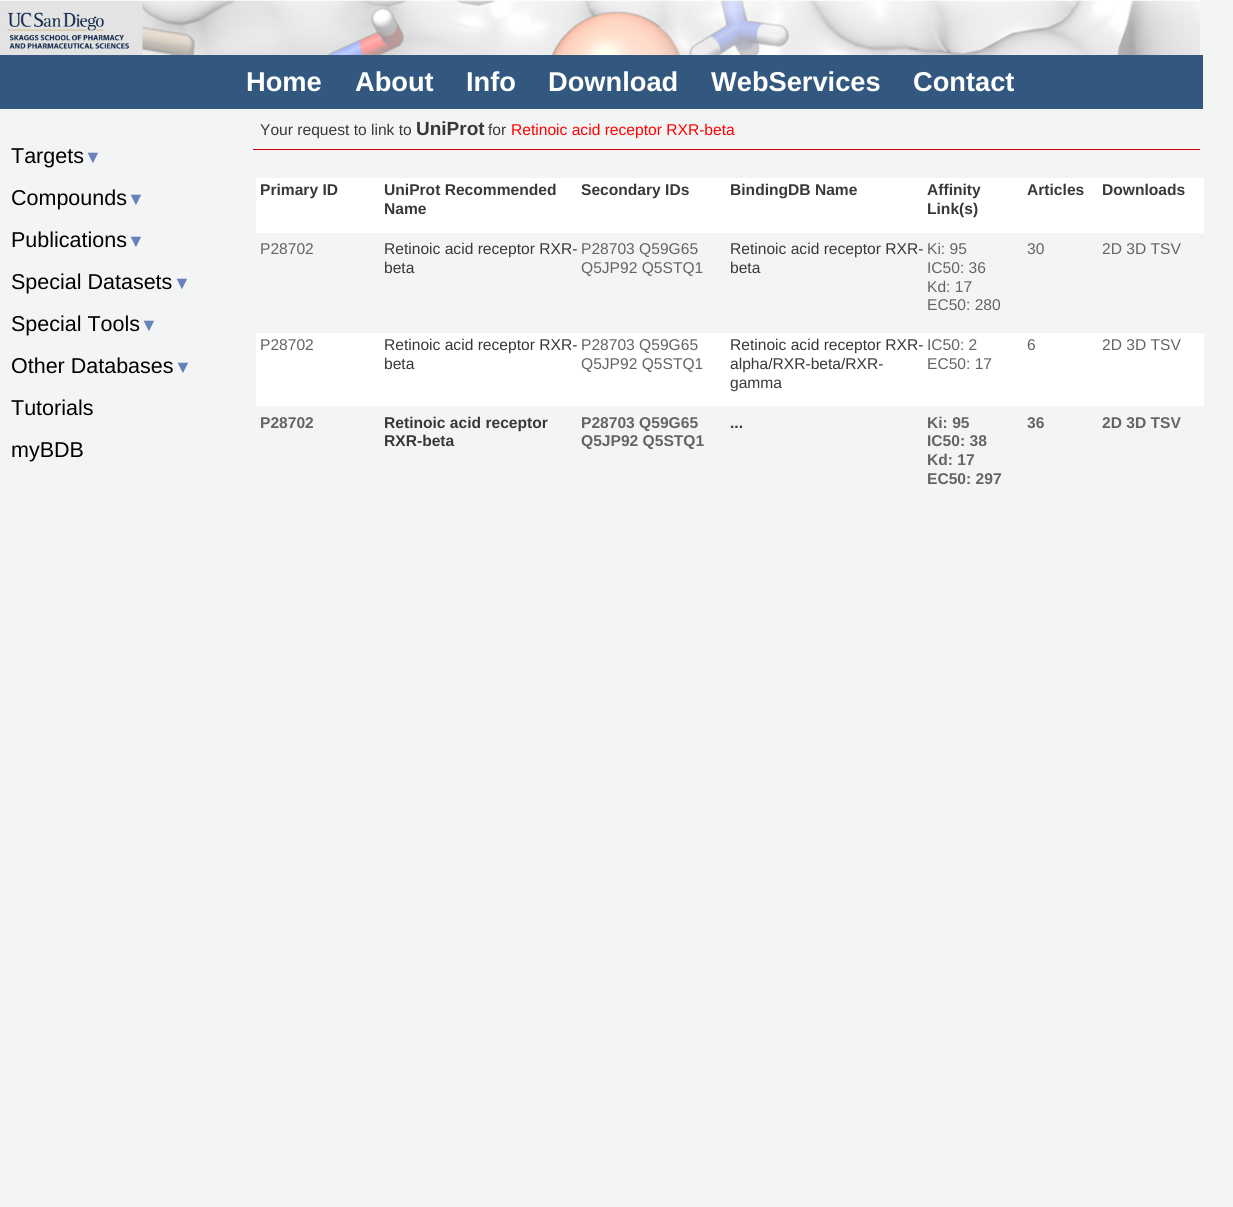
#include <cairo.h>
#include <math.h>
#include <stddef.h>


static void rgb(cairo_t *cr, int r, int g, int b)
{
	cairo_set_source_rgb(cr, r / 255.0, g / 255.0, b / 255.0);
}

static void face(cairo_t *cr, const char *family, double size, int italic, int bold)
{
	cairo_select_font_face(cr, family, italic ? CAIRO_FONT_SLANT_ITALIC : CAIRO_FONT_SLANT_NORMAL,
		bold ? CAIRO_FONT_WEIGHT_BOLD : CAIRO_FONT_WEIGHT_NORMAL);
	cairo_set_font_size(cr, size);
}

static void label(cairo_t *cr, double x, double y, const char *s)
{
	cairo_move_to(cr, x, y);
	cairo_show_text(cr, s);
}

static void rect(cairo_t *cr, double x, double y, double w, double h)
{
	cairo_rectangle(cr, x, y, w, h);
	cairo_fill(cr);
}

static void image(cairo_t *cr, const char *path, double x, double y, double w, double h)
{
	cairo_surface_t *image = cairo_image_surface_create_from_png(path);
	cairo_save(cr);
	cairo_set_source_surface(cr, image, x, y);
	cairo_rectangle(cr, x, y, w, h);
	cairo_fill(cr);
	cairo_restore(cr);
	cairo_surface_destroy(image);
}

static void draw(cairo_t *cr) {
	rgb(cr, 243, 245, 244);
	cairo_paint(cr);
	image(cr, "image0.png", 0, 0, 1200, 55);
	rgb(cr, 50, 88, 128);
	rect(cr, 0, 55, 1203, 54);
	face(cr, "Liberation Sans", 27.25, 0, 1);
	rgb(cr, 255, 255, 255);
	label(cr, 246, 91, "Home");
	label(cr, 355, 91, "About");
	label(cr, 466, 91, "Info");
	label(cr, 548, 91, "Download");
	label(cr, 711, 91, "WebServices");
	label(cr, 913, 91, "Contact");
	face(cr, "Liberation Sans", 21.5, 0, 0);
	rgb(cr, 0, 0, 0);
	label(cr, 11, 163, "Targets");
	face(cr, "Liberation Sans", 18, 0, 0);
	rgb(cr, 102, 130, 187);
	label(cr, 84, 163, "▼");
	face(cr, "Liberation Sans", 21.5, 0, 0);
	rgb(cr, 0, 0, 0);
	label(cr, 11, 205, "Compounds");
	face(cr, "Liberation Sans", 18, 0, 0);
	rgb(cr, 102, 130, 187);
	label(cr, 127, 205, "▼");
	face(cr, "Liberation Sans", 21.5, 0, 0);
	rgb(cr, 0, 0, 0);
	label(cr, 11, 247, "Publications");
	face(cr, "Liberation Sans", 18, 0, 0);
	rgb(cr, 102, 130, 187);
	label(cr, 127, 247, "▼");
	face(cr, "Liberation Sans", 21.5, 0, 0);
	rgb(cr, 0, 0, 0);
	label(cr, 11, 289, "Special Datasets");
	face(cr, "Liberation Sans", 18, 0, 0);
	rgb(cr, 102, 130, 187);
	label(cr, 173, 289, "▼");
	face(cr, "Liberation Sans", 21.5, 0, 0);
	rgb(cr, 0, 0, 0);
	label(cr, 11, 331, "Special Tools");
	face(cr, "Liberation Sans", 18, 0, 0);
	rgb(cr, 102, 130, 187);
	label(cr, 140, 331, "▼");
	face(cr, "Liberation Sans", 21.5, 0, 0);
	rgb(cr, 0, 0, 0);
	label(cr, 11, 373, "Other Databases");
	face(cr, "Liberation Sans", 18, 0, 0);
	rgb(cr, 102, 130, 187);
	label(cr, 174, 373, "▼");
	face(cr, "Liberation Sans", 21.5, 0, 0);
	rgb(cr, 0, 0, 0);
	label(cr, 11, 415, "Tutorials");
	label(cr, 11, 457, "myBDB");
	face(cr, "Liberation Sans", 15.6, 0, 0);
	rgb(cr, 56, 56, 56);
	label(cr, 260, 135, "Your request to link to");
	face(cr, "Liberation Sans", 19, 0, 1);
	label(cr, 416, 135, "UniProt");
	face(cr, "Liberation Sans", 15.6, 0, 0);
	label(cr, 488, 135, "for");
	rgb(cr, 255, 0, 0);
	label(cr, 511, 135, "Retinoic acid receptor RXR-beta");
	rgb(cr, 204, 0, 0);
	rect(cr, 253, 149, 947, 1);
	rgb(cr, 255, 255, 255);
	rect(cr, 256, 178, 948, 55);
	face(cr, "Liberation Sans", 15.6, 0, 1);
	rgb(cr, 56, 56, 56);
	label(cr, 260, 195, "Primary ID");
	label(cr, 384, 195, "UniProt Recommended");
	label(cr, 384, 214, "Name");
	label(cr, 581, 195, "Secondary IDs");
	label(cr, 730, 195, "BindingDB Name");
	label(cr, 927, 195, "Affinity");
	label(cr, 927, 214, "Link(s)");
	label(cr, 1027, 195, "Articles");
	label(cr, 1102, 195, "Downloads");
	face(cr, "Liberation Sans", 15.6, 0, 0);
	rgb(cr, 100, 100, 100);
	label(cr, 260, 254, "P28702");
	rgb(cr, 56, 56, 56);
	label(cr, 384, 254, "Retinoic acid receptor RXR-");
	label(cr, 384, 273, "beta");
	rgb(cr, 100, 100, 100);
	label(cr, 581, 254, "P28703 Q59G65");
	label(cr, 581, 273, "Q5JP92 Q5STQ1");
	rgb(cr, 56, 56, 56);
	label(cr, 730, 254, "Retinoic acid receptor RXR-");
	label(cr, 730, 273, "beta");
	rgb(cr, 100, 100, 100);
	label(cr, 927, 254, "Ki: 95");
	label(cr, 927, 273, "IC50: 36");
	label(cr, 927, 292, "Kd: 17");
	label(cr, 927, 310, "EC50: 280");
	label(cr, 1027, 254, "30");
	label(cr, 1102, 254, "2D 3D TSV");
	rgb(cr, 255, 255, 255);
	rect(cr, 256, 333, 948, 73);
	rgb(cr, 100, 100, 100);
	label(cr, 260, 350, "P28702");
	rgb(cr, 56, 56, 56);
	label(cr, 384, 350, "Retinoic acid receptor RXR-");
	label(cr, 384, 369, "beta");
	rgb(cr, 100, 100, 100);
	label(cr, 581, 350, "P28703 Q59G65");
	label(cr, 581, 369, "Q5JP92 Q5STQ1");
	rgb(cr, 56, 56, 56);
	label(cr, 730, 350, "Retinoic acid receptor RXR-");
	label(cr, 730, 369, "alpha/RXR-beta/RXR-");
	label(cr, 730, 388, "gamma");
	rgb(cr, 100, 100, 100);
	label(cr, 927, 350, "IC50: 2");
	label(cr, 927, 369, "EC50: 17");
	label(cr, 1027, 350, "6");
	label(cr, 1102, 350, "2D 3D TSV");
	face(cr, "Liberation Sans", 15.6, 0, 1);
	label(cr, 260, 428, "P28702");
	rgb(cr, 56, 56, 56);
	label(cr, 384, 428, "Retinoic acid receptor");
	label(cr, 384, 446, "RXR-beta");
	rgb(cr, 100, 100, 100);
	label(cr, 581, 428, "P28703 Q59G65");
	label(cr, 581, 446, "Q5JP92 Q5STQ1");
	rgb(cr, 56, 56, 56);
	label(cr, 730, 428, "...");
	rgb(cr, 100, 100, 100);
	label(cr, 927, 428, "Ki: 95");
	label(cr, 927, 446, "IC50: 38");
	label(cr, 927, 465, "Kd: 17");
	label(cr, 927, 484, "EC50: 297");
	label(cr, 1027, 428, "36");
	label(cr, 1102, 428, "2D 3D TSV");
}

int main(void) {
	cairo_surface_t *surface = cairo_image_surface_create(CAIRO_FORMAT_RGB24, 1233, 1207);
	cairo_t *cr = cairo_create(surface);
	cairo_font_options_t *options = cairo_font_options_create();
	cairo_font_options_set_hint_metrics(options, CAIRO_HINT_METRICS_OFF);
	cairo_font_options_set_hint_style(options, CAIRO_HINT_STYLE_NONE);
	cairo_set_font_options(cr, options);
	cairo_set_miter_limit(cr, 4);
	draw(cr);
	cairo_surface_write_to_png(surface, "render.png");
	cairo_font_options_destroy(options);
	cairo_destroy(cr);
	cairo_surface_destroy(surface);
	return 0;
}
